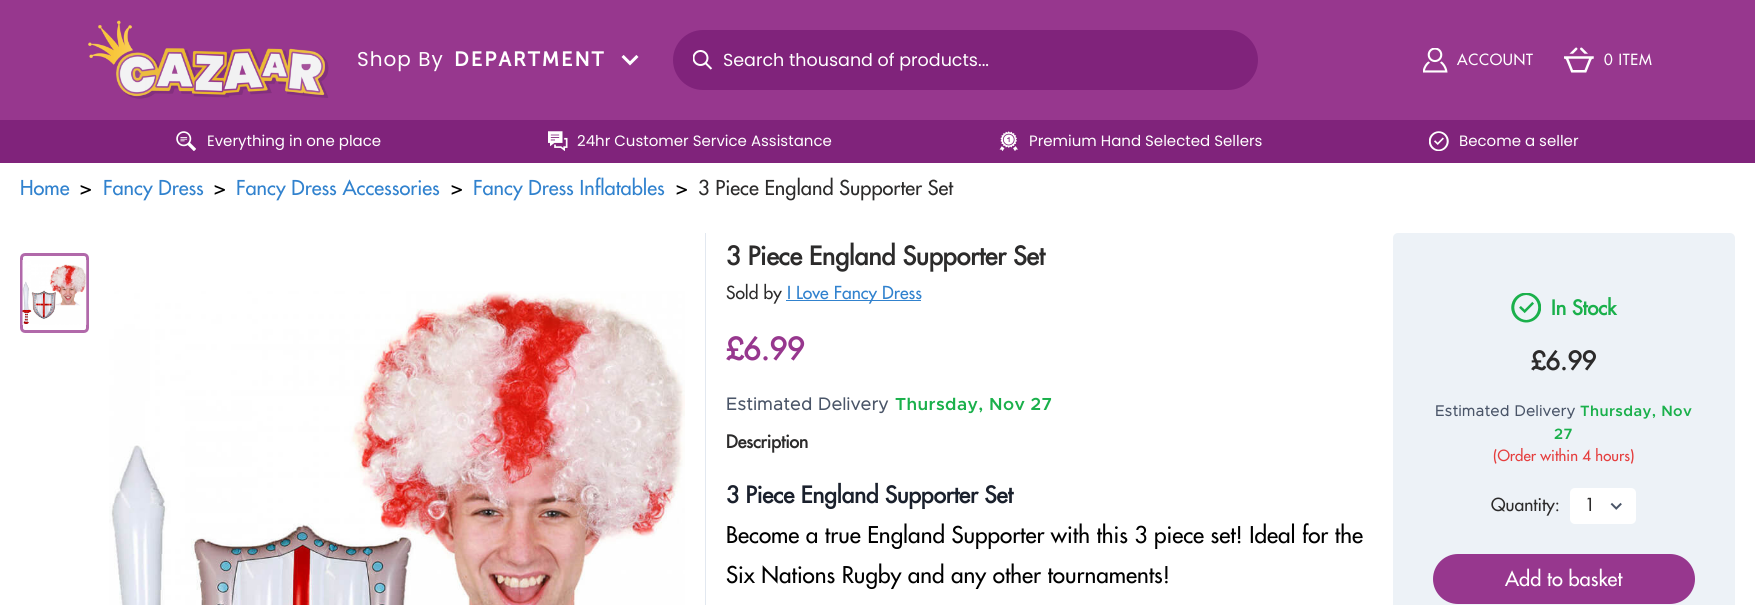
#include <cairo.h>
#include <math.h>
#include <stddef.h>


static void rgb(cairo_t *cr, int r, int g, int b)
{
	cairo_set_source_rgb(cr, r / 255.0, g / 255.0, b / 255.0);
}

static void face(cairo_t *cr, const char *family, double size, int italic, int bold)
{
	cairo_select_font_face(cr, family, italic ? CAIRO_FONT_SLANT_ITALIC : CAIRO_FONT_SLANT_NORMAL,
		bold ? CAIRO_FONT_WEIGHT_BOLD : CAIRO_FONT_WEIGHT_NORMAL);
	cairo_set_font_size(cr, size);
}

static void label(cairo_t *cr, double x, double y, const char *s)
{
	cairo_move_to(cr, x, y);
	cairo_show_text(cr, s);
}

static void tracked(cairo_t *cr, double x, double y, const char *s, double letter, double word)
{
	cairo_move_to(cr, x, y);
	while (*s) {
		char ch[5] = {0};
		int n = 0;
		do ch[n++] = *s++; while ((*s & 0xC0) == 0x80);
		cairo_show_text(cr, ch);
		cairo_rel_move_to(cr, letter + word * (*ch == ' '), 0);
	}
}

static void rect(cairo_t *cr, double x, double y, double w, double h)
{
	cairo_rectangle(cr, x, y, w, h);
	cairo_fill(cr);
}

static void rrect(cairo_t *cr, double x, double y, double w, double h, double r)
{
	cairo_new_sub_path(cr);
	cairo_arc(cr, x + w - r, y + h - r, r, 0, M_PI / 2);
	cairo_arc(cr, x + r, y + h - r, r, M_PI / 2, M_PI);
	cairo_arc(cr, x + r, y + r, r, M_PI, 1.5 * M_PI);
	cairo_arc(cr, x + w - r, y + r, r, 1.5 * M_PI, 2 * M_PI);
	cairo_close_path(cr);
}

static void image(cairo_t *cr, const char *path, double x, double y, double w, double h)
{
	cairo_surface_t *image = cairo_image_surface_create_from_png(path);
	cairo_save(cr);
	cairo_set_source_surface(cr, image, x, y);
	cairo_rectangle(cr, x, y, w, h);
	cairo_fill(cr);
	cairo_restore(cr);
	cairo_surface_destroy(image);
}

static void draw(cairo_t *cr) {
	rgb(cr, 255, 255, 255);
	cairo_paint(cr);
	rgb(cr, 151, 55, 142);
	rect(cr, 0, 0, 1755, 120);
	image(cr, "image0.png", 88, 20, 241, 79);
	face(cr, "Poppins", 20, 0, 0);
	rgb(cr, 255, 255, 255);
	tracked(cr, 357, 66, "Shop By", 1, 0);
	face(cr, "Museo Sans", 20, 0, 1);
	tracked(cr, 454, 66, "DEPARTMENT", 2, 0);
	image(cr, "image1.png", 621, 55, 18, 11);
	rgb(cr, 128, 35, 123);
	rrect(cr, 673, 30, 585, 60, 30);
	cairo_fill(cr);
	image(cr, "image2.png", 693, 50, 20, 20);
	face(cr, "Poppins", 17.5, 0, 0);
	rgb(cr, 255, 255, 255);
	label(cr, 723, 66, "Search thousand of products...");
	image(cr, "image3.png", 1423, 48, 25, 25);
	face(cr, "Futura Medium", 15, 0, 0);
	tracked(cr, 1457, 65, "ACCOUNT", 0.75, 0);
	image(cr, "image4.png", 1564, 47, 30, 26);
	tracked(cr, 1604, 65, "0 ITEM", 0.75, 0);
	rgb(cr, 128, 35, 123);
	rect(cr, 0, 120, 1755, 43);
	image(cr, "image5.png", 176, 131, 20, 20);
	face(cr, "Poppins", 15, 0, 0);
	rgb(cr, 255, 255, 255);
	label(cr, 207, 146, "Everything in one place");
	image(cr, "image6.png", 548, 131, 20, 20);
	label(cr, 577, 146, "24hr Customer Service Assistance");
	image(cr, "image7.png", 999, 131, 19, 20);
	label(cr, 1029, 146, "Premium Hand Selected Sellers");
	image(cr, "image8.png", 1429, 131, 20, 20);
	label(cr, 1459, 146, "Become a seller");
	face(cr, "Futura Medium", 20, 0, 0);
	rgb(cr, 49, 130, 206);
	label(cr, 20, 195, "Home");
	rgb(cr, 0, 0, 0);
	label(cr, 80, 195, ">");
	rgb(cr, 49, 130, 206);
	label(cr, 103, 195, "Fancy Dress");
	rgb(cr, 0, 0, 0);
	label(cr, 214, 195, ">");
	rgb(cr, 49, 130, 206);
	label(cr, 236, 195, "Fancy Dress Accessories");
	rgb(cr, 0, 0, 0);
	label(cr, 451, 195, ">");
	rgb(cr, 49, 130, 206);
	label(cr, 473, 195, "Fancy Dress Inflatables");
	rgb(cr, 0, 0, 0);
	label(cr, 676, 195, ">");
	rgb(cr, 44, 43, 43);
	label(cr, 698, 195, "3 Piece England Supporter Set");
	rgb(cr, 226, 232, 240);
	rect(cr, 705, 233, 1, 372);
	rrect(cr, 21.5, 254.5, 66, 77, 3.5);
	rgb(cr, 177, 105, 170);
	cairo_set_line_width(cr, 3);
	cairo_stroke(cr);
	image(cr, "image9.png", 22, 260, 65, 65);
	image(cr, "image10.png", 109, 291, 576, 314);
	face(cr, "Futura", 25, 0, 1);
	rgb(cr, 44, 43, 43);
	label(cr, 726, 265, "3 Piece England Supporter Set");
	face(cr, "Futura Medium", 17.5, 0, 0);
	label(cr, 726, 299, "Sold by");
	rgb(cr, 49, 130, 206);
	rect(cr, 786, 300, 135, 1);
	label(cr, 787, 299, "I Love Fancy Dress");
	face(cr, "Futura", 30, 0, 1);
	rgb(cr, 151, 55, 142);
	label(cr, 726, 360, "£6.99");
	face(cr, "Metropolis", 17.5, 0, 1);
	rgb(cr, 74, 85, 104);
	tracked(cr, 726, 410, "Estimated Delivery", 0.4, 0);
	face(cr, "Metropolis SemiBold", 17.5, 0, 0);
	rgb(cr, 26, 176, 75);
	tracked(cr, 895, 410, "Thursday, Nov 27", 0.4, 0);
	face(cr, "Futura", 17.5, 0, 1);
	rgb(cr, 44, 43, 43);
	label(cr, 726, 448, "Description");
	face(cr, "Futura", 22.5, 0, 1);
	rgb(cr, 26, 32, 44);
	label(cr, 726, 503, "3 Piece England Supporter Set");
	face(cr, "Futura Medium", 22.5, 0, 0);
	rgb(cr, 0, 0, 0);
	label(cr, 726, 543, "Become a true England Supporter with this 3 piece set! Ideal for the");
	label(cr, 726, 583, "Six Nations Rugby and any other tournaments!");
	rgb(cr, 237, 242, 247);
	rrect(cr, 1393, 233, 342, 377, 5);
	cairo_fill(cr);
	image(cr, "image11.png", 1511, 293, 30, 30);
	face(cr, "Futura", 20, 0, 1);
	rgb(cr, 26, 176, 75);
	label(cr, 1551, 315, "In Stock");
	face(cr, "Futura", 25, 0, 1);
	rgb(cr, 44, 43, 43);
	label(cr, 1531, 370, "£6.99");
	face(cr, "Metropolis", 15, 0, 1);
	rgb(cr, 74, 85, 104);
	tracked(cr, 1435, 416, "Estimated Delivery", 0.4, 0);
	face(cr, "Metropolis SemiBold", 15, 0, 0);
	rgb(cr, 26, 176, 75);
	tracked(cr, 1580, 416, "Thursday, Nov", 0.4, 0);
	tracked(cr, 1554, 439, "27", 0.4, 0);
	face(cr, "Futura Medium", 15, 0, 0);
	rgb(cr, 229, 62, 62);
	label(cr, 1493, 461, "(Order within 4 hours)");
	face(cr, "Futura Medium", 17.5, 0, 0);
	rgb(cr, 44, 43, 43);
	label(cr, 1491, 511, "Quantity:");
	rgb(cr, 255, 255, 255);
	rrect(cr, 1570, 488, 66, 36, 5);
	cairo_fill(cr);
	rgb(cr, 44, 43, 43);
	label(cr, 1585, 511, "1");
	image(cr, "image12.png", 1610, 502, 12, 8);
	rgb(cr, 151, 55, 142);
	rrect(cr, 1433, 554, 262, 50, 25);
	cairo_fill(cr);
	face(cr, "Futura Medium", 20, 0, 0);
	rgb(cr, 255, 255, 255);
	label(cr, 1505, 586, "Add to basket");
}

int main(void) {
	cairo_surface_t *surface = cairo_image_surface_create(CAIRO_FORMAT_RGB24, 1755, 605);
	cairo_t *cr = cairo_create(surface);
	cairo_font_options_t *options = cairo_font_options_create();
	cairo_font_options_set_hint_metrics(options, CAIRO_HINT_METRICS_OFF);
	cairo_font_options_set_hint_style(options, CAIRO_HINT_STYLE_NONE);
	cairo_set_font_options(cr, options);
	cairo_set_miter_limit(cr, 4);
	draw(cr);
	cairo_surface_write_to_png(surface, "render.png");
	cairo_font_options_destroy(options);
	cairo_destroy(cr);
	cairo_surface_destroy(surface);
	return 0;
}
